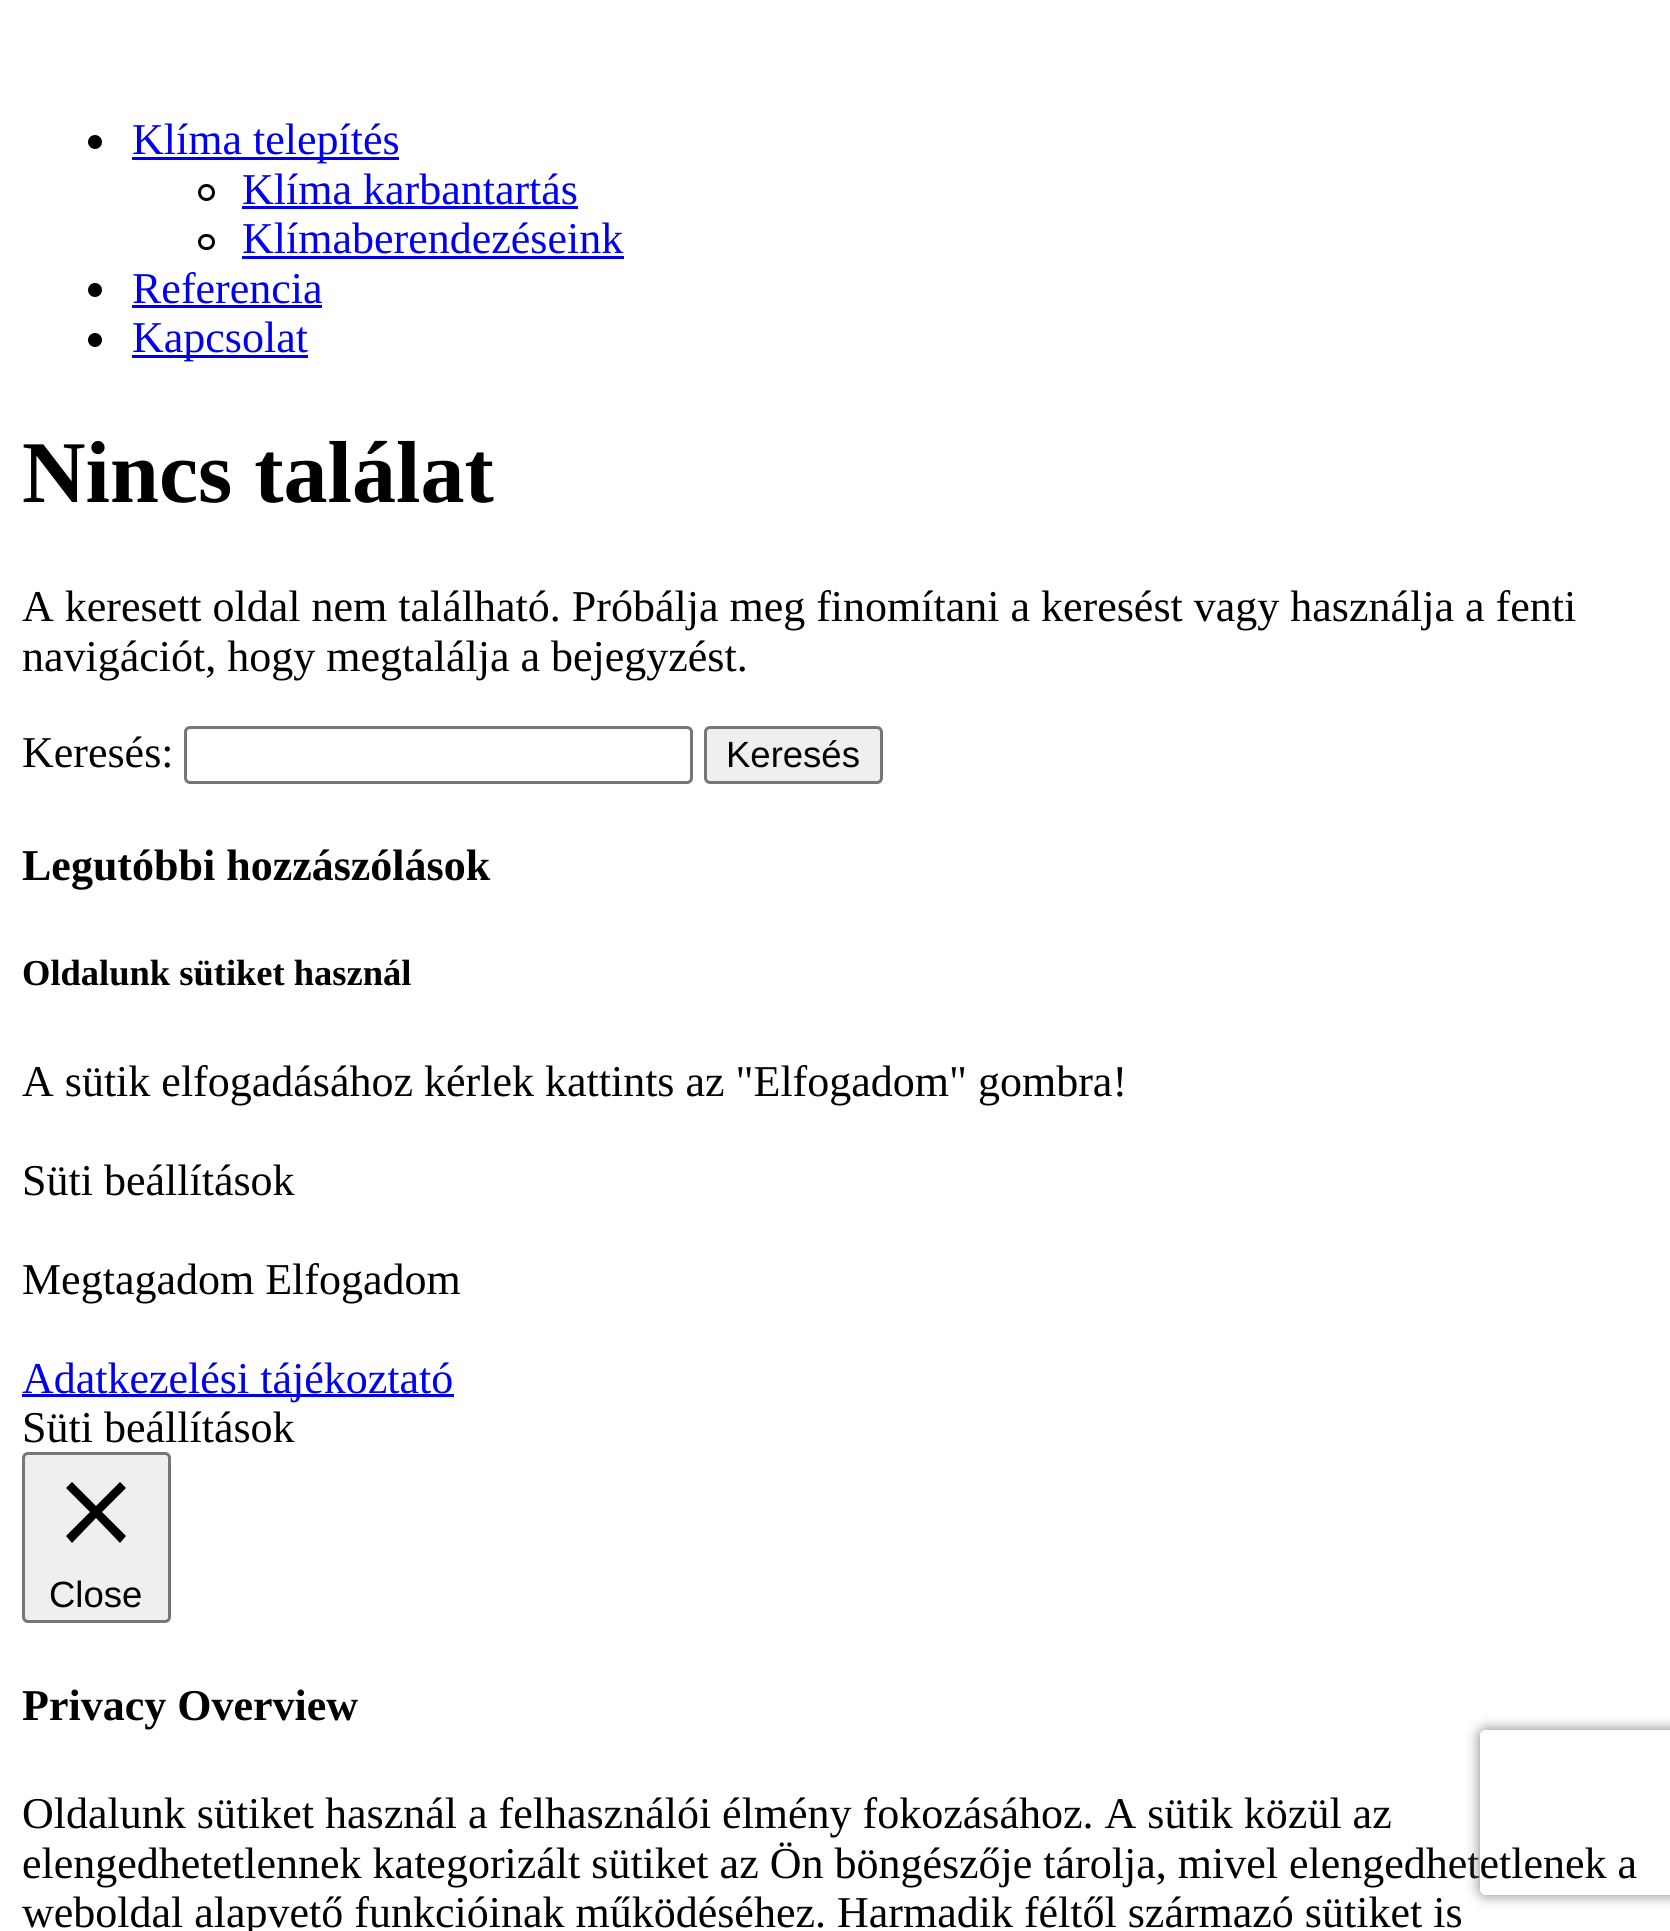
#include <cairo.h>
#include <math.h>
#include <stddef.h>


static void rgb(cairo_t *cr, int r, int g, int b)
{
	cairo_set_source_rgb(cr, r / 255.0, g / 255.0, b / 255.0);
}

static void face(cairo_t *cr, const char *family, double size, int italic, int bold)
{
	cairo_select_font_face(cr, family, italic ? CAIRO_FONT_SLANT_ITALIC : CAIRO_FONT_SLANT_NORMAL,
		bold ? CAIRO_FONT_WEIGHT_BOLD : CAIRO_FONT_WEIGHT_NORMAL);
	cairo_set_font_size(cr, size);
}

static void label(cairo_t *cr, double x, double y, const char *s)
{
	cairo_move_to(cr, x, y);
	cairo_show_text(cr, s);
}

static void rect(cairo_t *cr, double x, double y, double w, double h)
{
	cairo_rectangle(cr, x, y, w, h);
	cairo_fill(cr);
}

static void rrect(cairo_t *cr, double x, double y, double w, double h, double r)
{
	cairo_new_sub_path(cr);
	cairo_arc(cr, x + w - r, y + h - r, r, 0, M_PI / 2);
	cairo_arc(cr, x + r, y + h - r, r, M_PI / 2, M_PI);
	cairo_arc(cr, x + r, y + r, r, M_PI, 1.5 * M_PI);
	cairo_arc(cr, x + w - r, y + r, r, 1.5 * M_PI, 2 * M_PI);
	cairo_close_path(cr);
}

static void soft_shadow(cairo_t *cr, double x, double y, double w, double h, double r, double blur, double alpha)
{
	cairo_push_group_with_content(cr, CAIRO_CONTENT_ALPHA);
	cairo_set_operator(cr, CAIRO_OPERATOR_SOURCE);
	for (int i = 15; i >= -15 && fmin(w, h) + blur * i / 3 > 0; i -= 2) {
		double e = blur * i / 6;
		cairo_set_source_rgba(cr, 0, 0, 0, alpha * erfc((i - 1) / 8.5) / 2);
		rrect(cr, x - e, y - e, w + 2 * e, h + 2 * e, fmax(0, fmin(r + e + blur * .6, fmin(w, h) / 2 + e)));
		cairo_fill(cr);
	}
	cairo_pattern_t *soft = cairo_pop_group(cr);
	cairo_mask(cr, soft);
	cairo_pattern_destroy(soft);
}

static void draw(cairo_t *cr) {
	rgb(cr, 255, 255, 255);
	cairo_paint(cr);
	rgb(cr, 0, 0, 0);
	cairo_arc(cr, 95, 142, 7, 0, 2 * M_PI);
	cairo_fill(cr);
	rgb(cr, 0, 0, 238);
	rect(cr, 132, 157, 267, 3);
	face(cr, "Liberation Serif", 44, 0, 0);
	label(cr, 132, 154, "Klíma telepítés");
	cairo_new_path(cr);
	cairo_arc(cr, 206.5, 192.5, 7, 0, 2 * M_PI);
	rgb(cr, 0, 0, 0);
	cairo_set_line_width(cr, 3);
	cairo_stroke(cr);
	rgb(cr, 0, 0, 238);
	label(cr, 242, 204, "Klíma karbantartás");
	rect(cr, 242, 206, 336, 3);
	rrect(cr, 199.5, 235.5, 14, 13, 6.5);
	rgb(cr, 0, 0, 0);
	cairo_stroke(cr);
	rgb(cr, 0, 0, 238);
	label(cr, 242, 253, "Klímaberendezéseink");
	rect(cr, 242, 256, 382, 3);
	rgb(cr, 0, 0, 0);
	cairo_new_path(cr);
	cairo_arc(cr, 95, 290, 7, 0, 2 * M_PI);
	cairo_fill(cr);
	rgb(cr, 0, 0, 238);
	label(cr, 132, 303, "Referencia");
	rect(cr, 132, 305, 190, 3);
	rgb(cr, 0, 0, 0);
	cairo_new_path(cr);
	cairo_arc(cr, 95, 340, 7, 0, 2 * M_PI);
	cairo_fill(cr);
	rgb(cr, 0, 0, 238);
	rect(cr, 132, 355, 176, 3);
	label(cr, 132, 352, "Kapcsolat");
	face(cr, "Liberation Serif", 88, 0, 1);
	rgb(cr, 0, 0, 0);
	label(cr, 22, 502, "Nincs találat");
	face(cr, "Liberation Serif", 44, 0, 0);
	label(cr, 22, 621, "A keresett oldal nem található. Próbálja meg finomítani a keresést vagy használja a fenti");
	label(cr, 22, 671, "navigációt, hogy megtalálja a bejegyzést.");
	label(cr, 22, 767, "Keresés:");
	rrect(cr, 185.5, 727.5, 506, 55, 4.5);
	rgb(cr, 118, 118, 118);
	cairo_stroke(cr);
	rgb(cr, 239, 239, 239);
	rrect(cr, 705.5, 727.5, 176, 55, 4.5);
	cairo_fill_preserve(cr);
	rgb(cr, 118, 118, 118);
	cairo_stroke(cr);
	face(cr, "Liberation Sans", 36.5, 0, 0);
	rgb(cr, 0, 0, 0);
	label(cr, 726, 767, "Keresés");
	face(cr, "Liberation Serif", 44, 0, 1);
	label(cr, 22, 880, "Legutóbbi hozzászólások");
	face(cr, "Liberation Serif", 36.5, 0, 1);
	label(cr, 22, 985, "Oldalunk sütiket használ");
	face(cr, "Liberation Serif", 44, 0, 0);
	label(cr, 22, 1096, "A sütik elfogadásához kérlek kattints az \"Elfogadom\" gombra!");
	label(cr, 22, 1195, "Süti beállítások");
	label(cr, 22, 1294, "Megtagadom Elfogadom");
	rgb(cr, 0, 0, 238);
	rect(cr, 22, 1394, 432, 3);
	label(cr, 22, 1393, "Adatkezelési tájékoztató");
	rgb(cr, 0, 0, 0);
	label(cr, 22, 1442, "Süti beállítások");
	rgb(cr, 239, 239, 239);
	rrect(cr, 23.5, 1453.5, 146, 168, 4.5);
	cairo_fill_preserve(cr);
	rgb(cr, 118, 118, 118);
	cairo_stroke(cr);
	rgb(cr, 0, 0, 0);
	cairo_new_path(cr);
	cairo_move_to(cr, 126, 1488);
	cairo_line_to(cr, 120, 1482);
	cairo_line_to(cr, 96, 1506);
	cairo_line_to(cr, 72, 1482);
	cairo_line_to(cr, 66, 1488);
	cairo_line_to(cr, 90, 1512);
	cairo_line_to(cr, 66, 1536);
	cairo_line_to(cr, 72, 1543);
	cairo_line_to(cr, 96, 1518);
	cairo_line_to(cr, 120, 1543);
	cairo_line_to(cr, 126, 1536);
	cairo_line_to(cr, 102, 1512);
	cairo_close_path(cr);
	cairo_fill(cr);
	face(cr, "Liberation Sans", 36.5, 0, 0);
	label(cr, 49, 1607, "Close");
	face(cr, "Liberation Serif", 44, 0, 1);
	label(cr, 22, 1720, "Privacy Overview");
	face(cr, "Liberation Serif", 44, 0, 0);
	label(cr, 22, 1828, "Oldalunk sütiket használ a felhasználói élmény fokozásához. A sütik közül az");
	label(cr, 22, 1878, "elengedhetetlennek kategorizált sütiket az Ön böngészője tárolja, mivel elengedhetetlenek a");
	label(cr, 22, 1927, "weboldal alapvető funkcióinak működéséhez. Harmadik féltől származó sütiket is");
	cairo_save(cr);
	cairo_set_fill_rule(cr, CAIRO_FILL_RULE_EVEN_ODD);
	cairo_new_path(cr);
	cairo_move_to(cr, 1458, 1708);
	cairo_line_to(cr, 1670, 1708);
	cairo_line_to(cr, 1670, 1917);
	cairo_line_to(cr, 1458, 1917);
	cairo_close_path(cr);
	cairo_move_to(cr, 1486, 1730);
	cairo_line_to(cr, 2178, 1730);
	cairo_curve_to(cr, 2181.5, 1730, 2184, 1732.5, 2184, 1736);
	cairo_line_to(cr, 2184, 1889);
	cairo_curve_to(cr, 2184, 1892.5, 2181.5, 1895, 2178, 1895);
	cairo_line_to(cr, 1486, 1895);
	cairo_curve_to(cr, 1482.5, 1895, 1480, 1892.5, 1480, 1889);
	cairo_line_to(cr, 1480, 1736);
	cairo_curve_to(cr, 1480, 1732.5, 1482.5, 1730, 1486, 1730);
	cairo_close_path(cr);
	cairo_clip(cr);
	rgb(cr, 128, 128, 128);
	soft_shadow(cr, 1480, 1730, 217, 165, 6, 7, 1);
	cairo_restore(cr);
}

int main(void) {
	cairo_surface_t *surface = cairo_image_surface_create(CAIRO_FORMAT_RGB24, 1670, 1931);
	cairo_t *cr = cairo_create(surface);
	cairo_font_options_t *options = cairo_font_options_create();
	cairo_font_options_set_hint_metrics(options, CAIRO_HINT_METRICS_OFF);
	cairo_font_options_set_hint_style(options, CAIRO_HINT_STYLE_NONE);
	cairo_set_font_options(cr, options);
	cairo_set_miter_limit(cr, 4);
	draw(cr);
	cairo_surface_write_to_png(surface, "render.png");
	cairo_font_options_destroy(options);
	cairo_destroy(cr);
	cairo_surface_destroy(surface);
	return 0;
}
